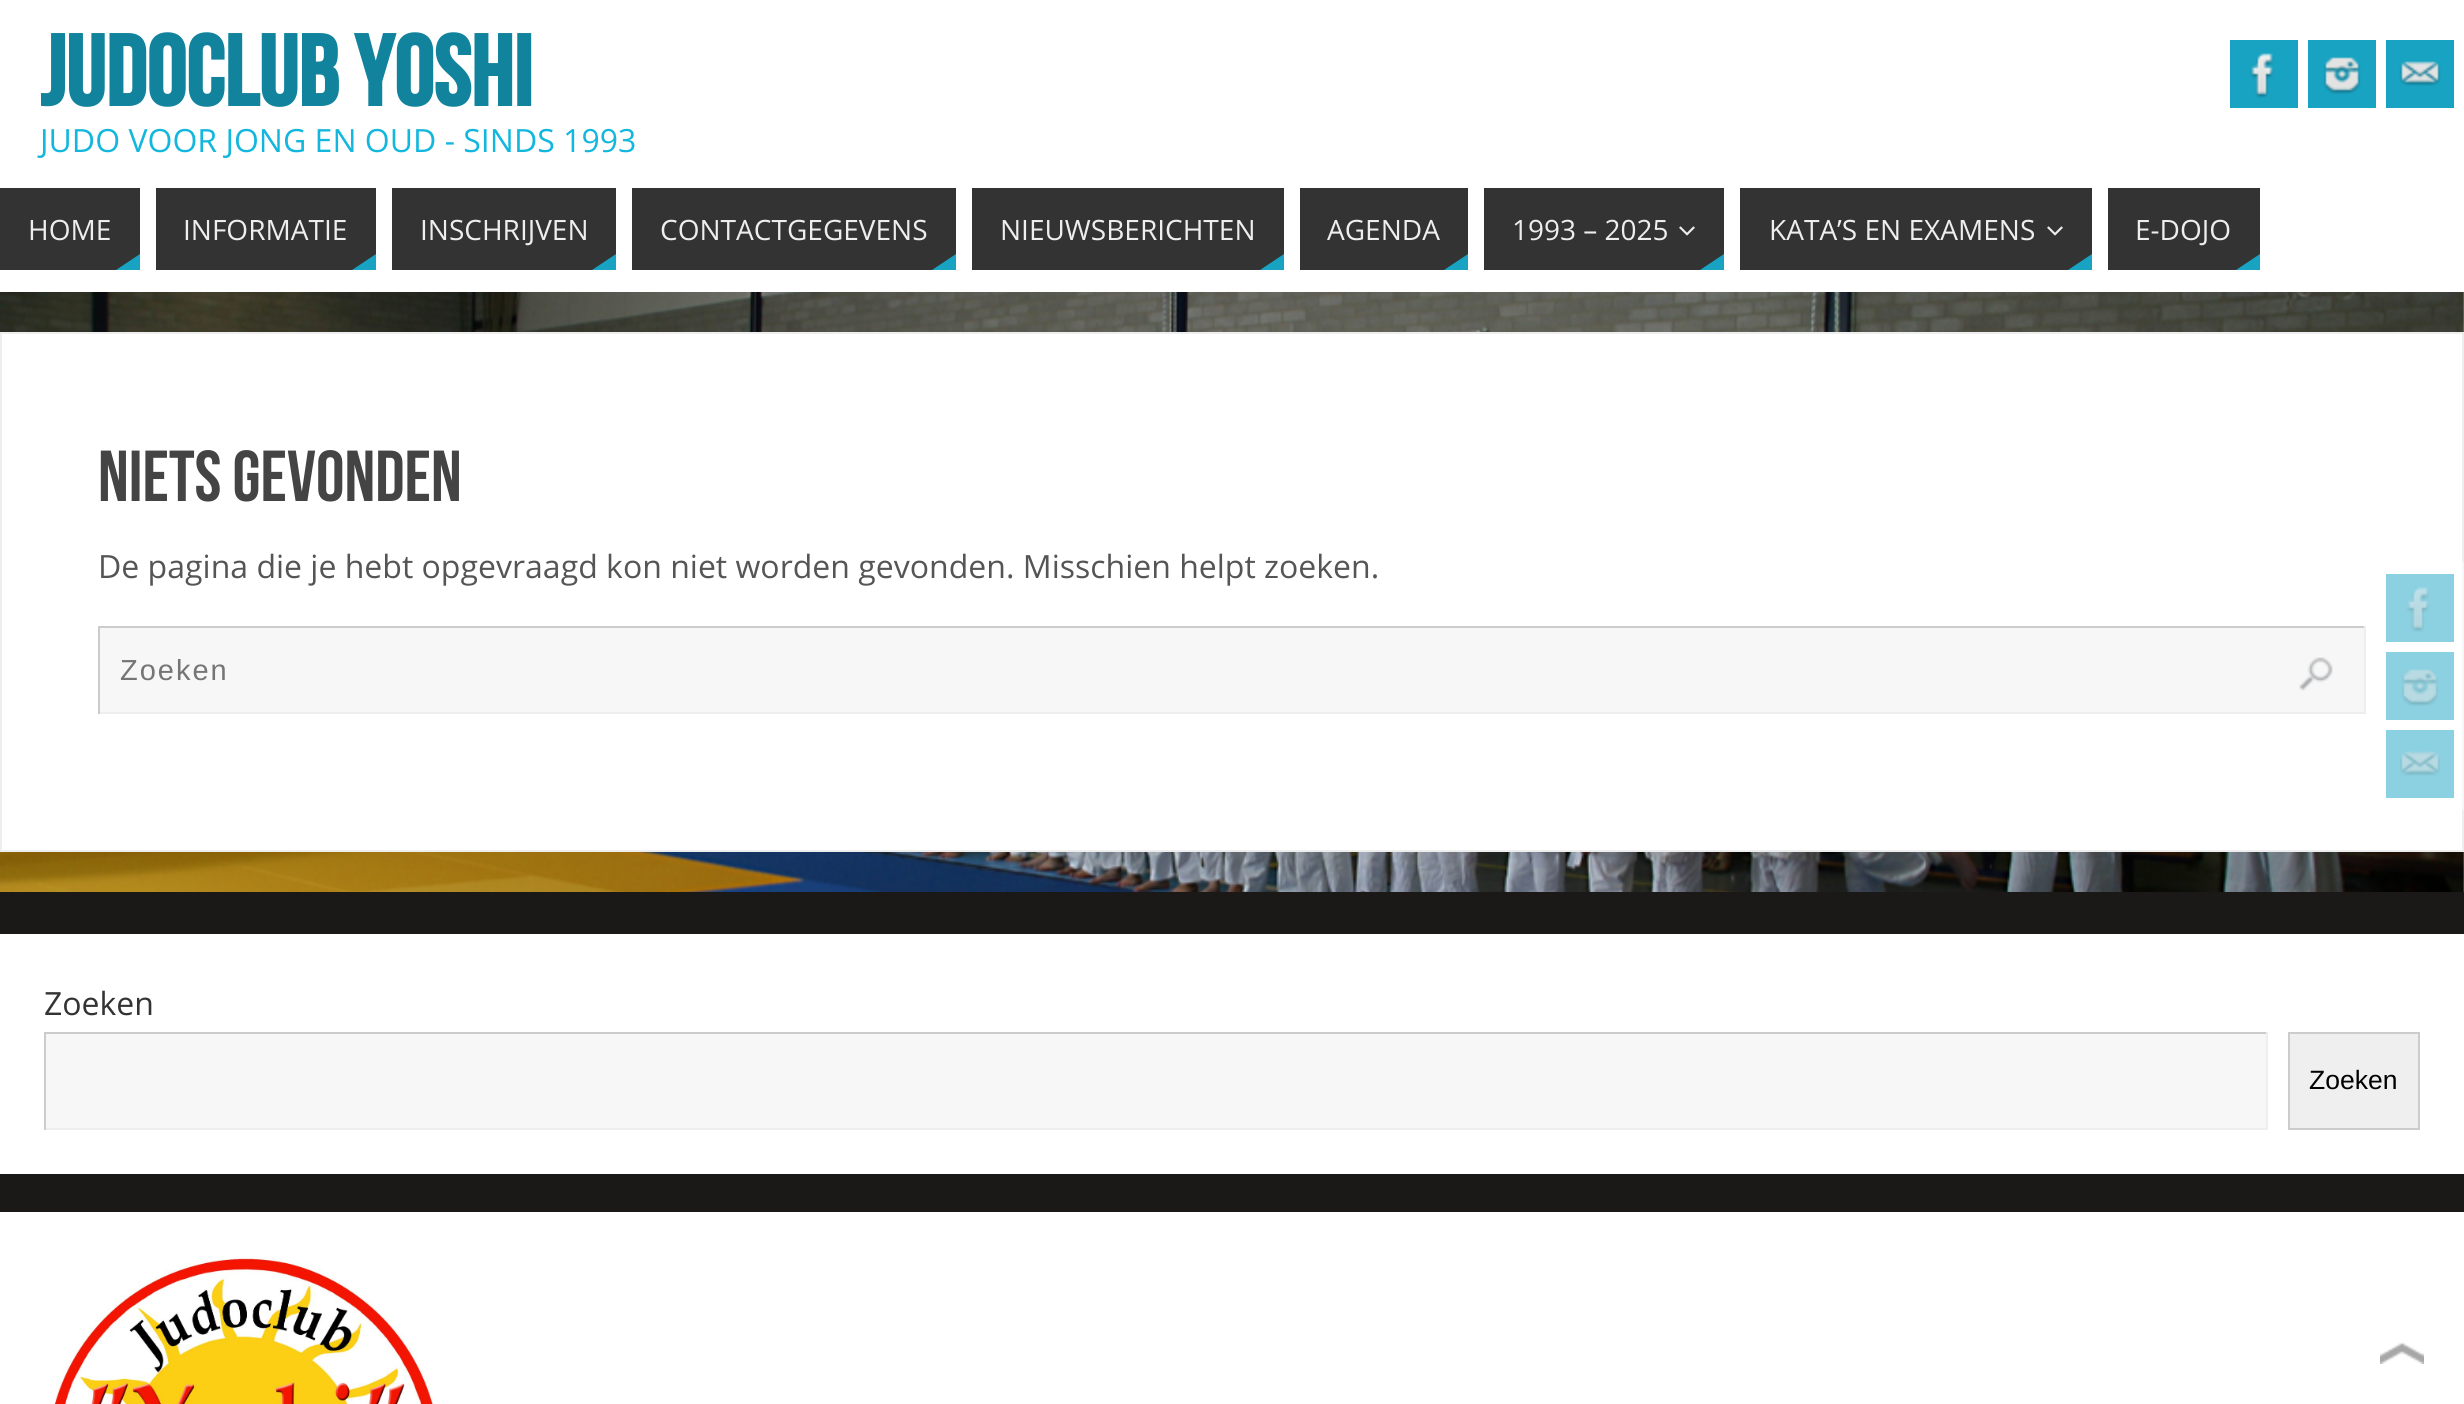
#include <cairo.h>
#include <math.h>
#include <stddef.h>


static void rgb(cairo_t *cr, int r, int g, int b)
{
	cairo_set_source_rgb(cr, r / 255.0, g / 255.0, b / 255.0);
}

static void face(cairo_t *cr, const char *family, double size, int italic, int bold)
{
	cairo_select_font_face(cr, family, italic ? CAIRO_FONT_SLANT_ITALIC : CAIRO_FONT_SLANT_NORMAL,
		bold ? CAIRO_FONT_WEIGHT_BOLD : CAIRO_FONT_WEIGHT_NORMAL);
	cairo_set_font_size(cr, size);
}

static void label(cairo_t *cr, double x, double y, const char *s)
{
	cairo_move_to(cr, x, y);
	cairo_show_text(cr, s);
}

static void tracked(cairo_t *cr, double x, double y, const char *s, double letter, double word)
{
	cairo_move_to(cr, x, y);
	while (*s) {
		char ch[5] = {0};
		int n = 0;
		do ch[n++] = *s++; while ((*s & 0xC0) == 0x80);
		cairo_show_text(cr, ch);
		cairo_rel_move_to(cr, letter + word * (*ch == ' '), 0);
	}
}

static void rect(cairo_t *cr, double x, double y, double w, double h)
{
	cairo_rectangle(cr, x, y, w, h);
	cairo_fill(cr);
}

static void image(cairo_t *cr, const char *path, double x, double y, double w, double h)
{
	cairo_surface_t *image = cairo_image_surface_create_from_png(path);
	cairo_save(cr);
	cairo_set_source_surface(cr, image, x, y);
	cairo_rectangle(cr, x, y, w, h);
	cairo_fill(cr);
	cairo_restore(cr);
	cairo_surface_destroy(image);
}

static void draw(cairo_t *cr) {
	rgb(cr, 255, 255, 255);
	cairo_paint(cr);
	image(cr, "image0.png", 0, 292, 2464, 600);
	face(cr, "Bebas Neue", 100, 0, 1);
	rgb(cr, 17, 131, 157);
	label(cr, 40, 106, "JUDOCLUB YOSHI");
	face(cr, "Open Sans", 32, 0, 0);
	rgb(cr, 19, 183, 221);
	label(cr, 40, 152, "JUDO VOOR JONG EN OUD - SINDS 1993");
	rgb(cr, 25, 163, 194);
	rect(cr, 2230, 40, 68, 68);
	image(cr, "image1.png", 2250, 53, 24, 45);
	rect(cr, 2308, 40, 68, 68);
	image(cr, "image2.png", 2323, 57, 38, 37);
	rect(cr, 2386, 40, 68, 68);
	image(cr, "image3.png", 2399, 61, 42, 25);
	rgb(cr, 51, 51, 51);
	rect(cr, 0, 188, 140, 82);
	face(cr, "Open Sans", 28, 0, 0);
	rgb(cr, 238, 238, 238);
	label(cr, 28, 240, "HOME");
	rgb(cr, 25, 163, 194);
	cairo_new_path(cr);
	cairo_move_to(cr, 140, 270);
	cairo_line_to(cr, 116, 270);
	cairo_line_to(cr, 140, 254);
	cairo_close_path(cr);
	cairo_fill(cr);
	rgb(cr, 51, 51, 51);
	rect(cr, 156, 188, 220, 82);
	rgb(cr, 238, 238, 238);
	label(cr, 183, 240, "INFORMATIE");
	rgb(cr, 25, 163, 194);
	cairo_new_path(cr);
	cairo_move_to(cr, 376, 270);
	cairo_line_to(cr, 352, 270);
	cairo_line_to(cr, 376, 254);
	cairo_close_path(cr);
	cairo_fill(cr);
	rgb(cr, 51, 51, 51);
	rect(cr, 392, 188, 224, 82);
	rgb(cr, 238, 238, 238);
	label(cr, 420, 240, "INSCHRIJVEN");
	rgb(cr, 25, 163, 194);
	cairo_new_path(cr);
	cairo_move_to(cr, 616, 270);
	cairo_line_to(cr, 592, 270);
	cairo_line_to(cr, 616, 254);
	cairo_close_path(cr);
	cairo_fill(cr);
	rgb(cr, 51, 51, 51);
	rect(cr, 632, 188, 324, 82);
	rgb(cr, 238, 238, 238);
	label(cr, 660, 240, "CONTACTGEGEVENS");
	rgb(cr, 25, 163, 194);
	cairo_new_path(cr);
	cairo_move_to(cr, 956, 270);
	cairo_line_to(cr, 932, 270);
	cairo_line_to(cr, 956, 254);
	cairo_close_path(cr);
	cairo_fill(cr);
	rgb(cr, 51, 51, 51);
	rect(cr, 972, 188, 312, 82);
	rgb(cr, 238, 238, 238);
	label(cr, 1000, 240, "NIEUWSBERICHTEN");
	rgb(cr, 25, 163, 194);
	cairo_new_path(cr);
	cairo_move_to(cr, 1284, 270);
	cairo_line_to(cr, 1260, 270);
	cairo_line_to(cr, 1284, 254);
	cairo_close_path(cr);
	cairo_fill(cr);
	rgb(cr, 51, 51, 51);
	rect(cr, 1300, 188, 168, 82);
	rgb(cr, 238, 238, 238);
	label(cr, 1327, 240, "AGENDA");
	rgb(cr, 25, 163, 194);
	cairo_new_path(cr);
	cairo_move_to(cr, 1468, 270);
	cairo_line_to(cr, 1444, 270);
	cairo_line_to(cr, 1468, 254);
	cairo_close_path(cr);
	cairo_fill(cr);
	rgb(cr, 51, 51, 51);
	rect(cr, 1484, 188, 240, 82);
	rgb(cr, 238, 238, 238);
	label(cr, 1512, 240, "1993 – 2025");
	image(cr, "image4.png", 1679, 226, 16, 10);
	rgb(cr, 25, 163, 194);
	cairo_new_path(cr);
	cairo_move_to(cr, 1724, 270);
	cairo_line_to(cr, 1700, 270);
	cairo_line_to(cr, 1724, 254);
	cairo_close_path(cr);
	cairo_fill(cr);
	rgb(cr, 51, 51, 51);
	rect(cr, 1740, 188, 352, 82);
	rgb(cr, 238, 238, 238);
	label(cr, 1769, 240, "KATA’S EN EXAMENS");
	image(cr, "image4.png", 2047, 226, 16, 10);
	rgb(cr, 25, 163, 194);
	cairo_new_path(cr);
	cairo_move_to(cr, 2092, 270);
	cairo_line_to(cr, 2068, 270);
	cairo_line_to(cr, 2092, 254);
	cairo_close_path(cr);
	cairo_fill(cr);
	rgb(cr, 51, 51, 51);
	rect(cr, 2108, 188, 152, 82);
	rgb(cr, 238, 238, 238);
	label(cr, 2135, 240, "E-DOJO");
	rgb(cr, 25, 163, 194);
	cairo_new_path(cr);
	cairo_move_to(cr, 2260, 270);
	cairo_line_to(cr, 2236, 270);
	cairo_line_to(cr, 2260, 254);
	cairo_close_path(cr);
	cairo_fill(cr);
	rgb(cr, 255, 255, 255);
	cairo_rectangle(cr, 1, 333, 2462, 518);
	cairo_fill_preserve(cr);
	rgb(cr, 238, 238, 238);
	cairo_stroke(cr);
	face(cr, "Bebas Neue", 72, 0, 0);
	rgb(cr, 68, 68, 68);
	label(cr, 98, 501, "Niets gevonden");
	face(cr, "Open Sans", 32, 0, 0);
	rgb(cr, 85, 85, 85);
	label(cr, 98, 578, "De pagina die je hebt opgevraagd kon niet worden gevonden. Misschien helpt zoeken.");
	rgb(cr, 247, 247, 247);
	rect(cr, 100, 628, 2264, 84);
	rgb(cr, 204, 204, 204);
	rect(cr, 98, 626, 2268, 2);
	rgb(cr, 238, 238, 238);
	rect(cr, 2364, 626, 2, 88);
	rect(cr, 98, 712, 2268, 2);
	rgb(cr, 204, 204, 204);
	rect(cr, 98, 626, 2, 88);
	face(cr, "Liberation Sans", 29, 0, 0);
	rgb(cr, 117, 117, 117);
	tracked(cr, 120, 680, "Zoeken", 2, 0);
	image(cr, "image5.png", 2299, 657, 34, 34);
	cairo_set_source_rgba(cr, 1, 1, 1, 0.5);
	rect(cr, 2462, 562, 2, 248);
	rgb(cr, 140, 209, 225);
	rect(cr, 2386, 574, 68, 68);
	image(cr, "image6.png", 2407, 587, 22, 45);
	rect(cr, 2386, 652, 68, 68);
	image(cr, "image7.png", 2402, 669, 36, 37);
	rect(cr, 2386, 730, 68, 68);
	image(cr, "image8.png", 2400, 751, 40, 25);
	rgb(cr, 26, 25, 23);
	rect(cr, 0, 892, 2464, 320);
	rgb(cr, 255, 255, 255);
	rect(cr, 0, 934, 2464, 240);
	face(cr, "Open Sans", 32, 0, 0);
	rgb(cr, 51, 51, 51);
	label(cr, 44, 1015, "Zoeken");
	rgb(cr, 247, 247, 247);
	rect(cr, 46, 1034, 2220, 94);
	rgb(cr, 204, 204, 204);
	rect(cr, 44, 1032, 2224, 2);
	rgb(cr, 238, 238, 238);
	rect(cr, 2266, 1032, 2, 98);
	rect(cr, 44, 1128, 2224, 2);
	rgb(cr, 204, 204, 204);
	rect(cr, 44, 1032, 2, 98);
	rgb(cr, 239, 239, 239);
	cairo_rectangle(cr, 2289, 1033, 130, 96);
	cairo_fill_preserve(cr);
	rgb(cr, 204, 204, 204);
	cairo_stroke(cr);
	face(cr, "Liberation Sans", 26.5, 0, 0);
	rgb(cr, 0, 0, 0);
	label(cr, 2309, 1089, "Zoeken");
	image(cr, "image9.png", 50, 1256, 385, 148);
	image(cr, "image10.png", 2380, 1342, 44, 22);
}

int main(void) {
	cairo_surface_t *surface = cairo_image_surface_create(CAIRO_FORMAT_RGB24, 2464, 1404);
	cairo_t *cr = cairo_create(surface);
	cairo_font_options_t *options = cairo_font_options_create();
	cairo_font_options_set_hint_metrics(options, CAIRO_HINT_METRICS_OFF);
	cairo_font_options_set_hint_style(options, CAIRO_HINT_STYLE_NONE);
	cairo_set_font_options(cr, options);
	cairo_set_miter_limit(cr, 4);
	draw(cr);
	cairo_surface_write_to_png(surface, "render.png");
	cairo_font_options_destroy(options);
	cairo_destroy(cr);
	cairo_surface_destroy(surface);
	return 0;
}
